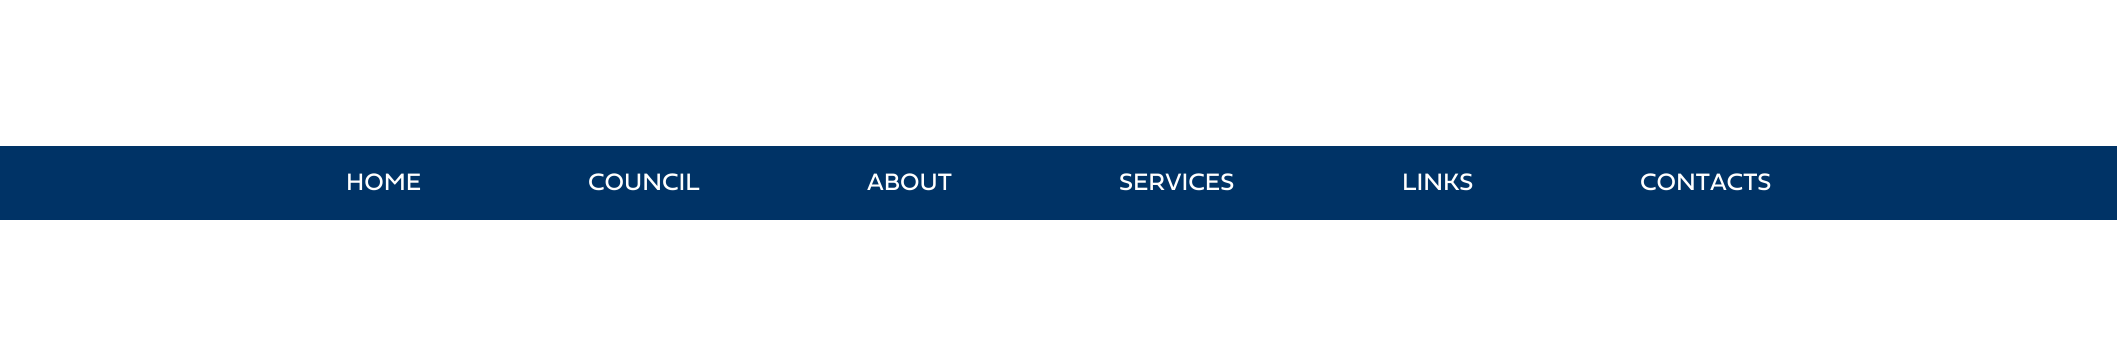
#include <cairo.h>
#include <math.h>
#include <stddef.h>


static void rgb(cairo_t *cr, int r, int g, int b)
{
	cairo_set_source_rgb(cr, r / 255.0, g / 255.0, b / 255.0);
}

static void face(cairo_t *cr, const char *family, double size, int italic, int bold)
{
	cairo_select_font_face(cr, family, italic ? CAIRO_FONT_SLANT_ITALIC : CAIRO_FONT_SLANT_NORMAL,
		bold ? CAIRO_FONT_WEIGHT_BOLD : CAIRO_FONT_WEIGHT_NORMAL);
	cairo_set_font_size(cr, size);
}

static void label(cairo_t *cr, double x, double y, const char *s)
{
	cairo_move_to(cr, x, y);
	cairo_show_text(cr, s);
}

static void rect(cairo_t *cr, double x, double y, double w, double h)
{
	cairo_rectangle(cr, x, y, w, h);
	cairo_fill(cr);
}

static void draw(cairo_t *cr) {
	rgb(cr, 255, 255, 255);
	cairo_paint(cr);
	rgb(cr, 0, 51, 102);
	rect(cr, 0, 146, 2117, 74);
	face(cr, "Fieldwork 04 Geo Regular", 24.75, 0, 0);
	rgb(cr, 255, 255, 255);
	label(cr, 346, 190, "HOME");
	label(cr, 588, 190, "COUNCIL");
	label(cr, 867, 190, "ABOUT");
	label(cr, 1119, 190, "SERVICES");
	label(cr, 1402, 190, "LINKS");
	label(cr, 1640, 190, "CONTACTS");
}

int main(void) {
	cairo_surface_t *surface = cairo_image_surface_create(CAIRO_FORMAT_RGB24, 2117, 357);
	cairo_t *cr = cairo_create(surface);
	cairo_font_options_t *options = cairo_font_options_create();
	cairo_font_options_set_hint_metrics(options, CAIRO_HINT_METRICS_OFF);
	cairo_font_options_set_hint_style(options, CAIRO_HINT_STYLE_NONE);
	cairo_set_font_options(cr, options);
	cairo_set_miter_limit(cr, 4);
	draw(cr);
	cairo_surface_write_to_png(surface, "render.png");
	cairo_font_options_destroy(options);
	cairo_destroy(cr);
	cairo_surface_destroy(surface);
	return 0;
}
